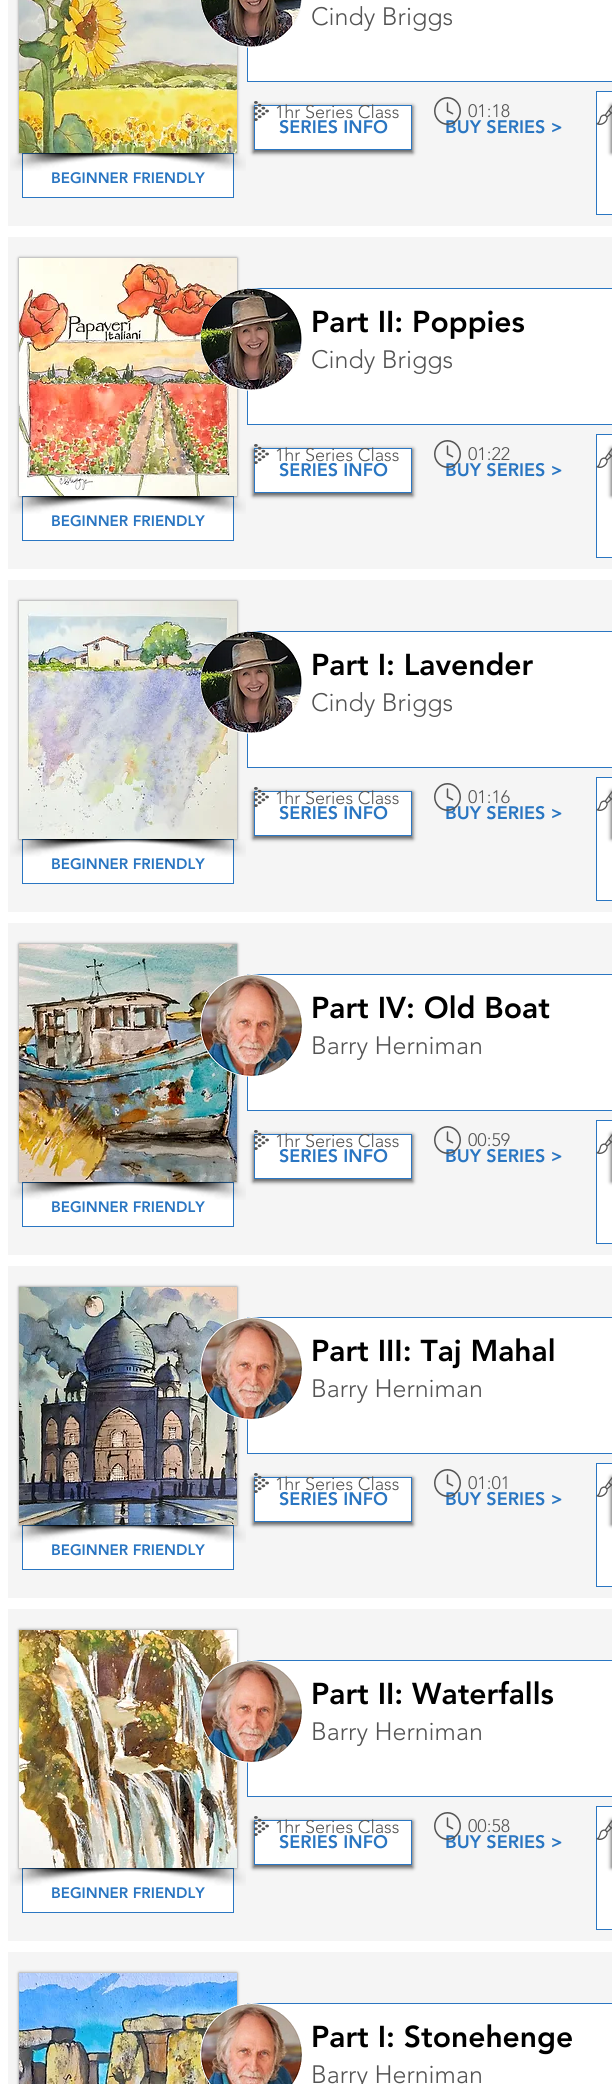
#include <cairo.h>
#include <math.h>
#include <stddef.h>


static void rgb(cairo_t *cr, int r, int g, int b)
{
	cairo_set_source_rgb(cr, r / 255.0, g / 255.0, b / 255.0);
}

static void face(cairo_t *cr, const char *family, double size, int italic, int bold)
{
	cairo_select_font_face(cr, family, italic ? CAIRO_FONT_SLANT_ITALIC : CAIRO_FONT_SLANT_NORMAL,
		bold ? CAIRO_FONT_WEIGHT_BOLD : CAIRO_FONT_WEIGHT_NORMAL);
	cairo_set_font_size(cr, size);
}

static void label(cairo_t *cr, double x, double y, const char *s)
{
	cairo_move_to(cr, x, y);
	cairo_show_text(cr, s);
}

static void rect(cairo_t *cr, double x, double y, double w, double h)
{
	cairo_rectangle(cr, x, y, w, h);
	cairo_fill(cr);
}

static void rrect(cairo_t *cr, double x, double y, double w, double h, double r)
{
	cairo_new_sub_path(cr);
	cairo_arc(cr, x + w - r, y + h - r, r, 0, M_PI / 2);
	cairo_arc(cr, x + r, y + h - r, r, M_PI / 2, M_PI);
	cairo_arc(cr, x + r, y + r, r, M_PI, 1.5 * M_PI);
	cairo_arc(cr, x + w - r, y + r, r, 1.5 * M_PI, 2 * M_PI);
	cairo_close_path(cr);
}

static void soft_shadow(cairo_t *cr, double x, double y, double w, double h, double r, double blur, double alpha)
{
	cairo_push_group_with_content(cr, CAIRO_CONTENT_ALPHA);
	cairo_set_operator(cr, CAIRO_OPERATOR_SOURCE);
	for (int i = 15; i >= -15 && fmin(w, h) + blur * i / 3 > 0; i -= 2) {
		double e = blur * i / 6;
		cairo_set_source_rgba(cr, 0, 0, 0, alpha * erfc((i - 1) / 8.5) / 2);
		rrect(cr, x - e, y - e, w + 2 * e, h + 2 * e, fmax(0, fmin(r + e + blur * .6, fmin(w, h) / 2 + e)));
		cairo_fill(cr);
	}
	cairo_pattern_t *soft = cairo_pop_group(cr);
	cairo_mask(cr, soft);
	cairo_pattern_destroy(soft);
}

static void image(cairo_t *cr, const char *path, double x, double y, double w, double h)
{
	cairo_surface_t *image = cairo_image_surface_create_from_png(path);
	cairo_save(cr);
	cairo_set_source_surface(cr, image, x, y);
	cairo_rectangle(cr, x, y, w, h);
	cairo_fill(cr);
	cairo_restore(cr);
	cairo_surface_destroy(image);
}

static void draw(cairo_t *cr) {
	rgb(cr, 255, 255, 255);
	cairo_paint(cr);
	rgb(cr, 245, 245, 245);
	rect(cr, 8, 0, 604, 226);
	rgb(cr, 255, 255, 255);
	cairo_rectangle(cr, 22.5, 153.5, 211, 44);
	cairo_fill_preserve(cr);
	rgb(cr, 42, 118, 194);
	cairo_set_line_width(cr, 1);
	cairo_stroke(cr);
	rgb(cr, 0, 0, 0);
	soft_shadow(cr, 19, -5, 218, 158, 0, 1.5, 0.5);
	image(cr, "image0.png", 19, 0, 218, 153);
	image(cr, "image1.png", 10, 153, 149, 18);
	image(cr, "image2.png", 108, 153, 138, 18);
	rgb(cr, 255, 255, 255);
	cairo_rectangle(cr, 247.5, -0.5, 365, 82);
	cairo_fill_preserve(cr);
	rgb(cr, 42, 118, 194);
	cairo_stroke(cr);
	image(cr, "image3.png", 200, 0, 102, 48);
	face(cr, "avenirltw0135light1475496 Light", 25, 0, 0);
	rgb(cr, 84, 84, 84);
	label(cr, 311, 25, "Cindy Briggs");
	rgb(cr, 0, 0, 0);
	soft_shadow(cr, 253, 106, 160, 47, 0, 2, 0.6);
	rgb(cr, 255, 255, 255);
	cairo_rectangle(cr, 254.5, 105.5, 157, 44);
	cairo_fill_preserve(cr);
	rgb(cr, 42, 118, 194);
	cairo_stroke(cr);
	image(cr, "image4.png", 254, 101, 15, 20);
	face(cr, "avenirltw0135light1475496 Light", 18, 0, 0);
	rgb(cr, 84, 84, 84);
	label(cr, 275, 118, "1hr Series Class");
	face(cr, "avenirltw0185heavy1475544 Black", 18, 0, 0);
	rgb(cr, 42, 118, 194);
	label(cr, 445, 133, "BUY SERIES >");
	image(cr, "image5.png", 434, 97, 27, 28);
	face(cr, "avenirltw0135light1475496 Light", 18, 0, 0);
	rgb(cr, 84, 84, 84);
	label(cr, 468, 117, "01:18");
	rgb(cr, 255, 255, 255);
	cairo_rectangle(cr, 596.5, 91.5, 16, 123);
	cairo_fill_preserve(cr);
	rgb(cr, 42, 118, 194);
	cairo_stroke(cr);
	rgb(cr, 0, 0, 0);
	soft_shadow(cr, 611, 105, 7, 48, 0, 2, 0.6);
	image(cr, "image6.png", 596, 105, 16, 20);
	face(cr, "avenirltw0185heavy1475544 Black", 18, 0, 0);
	rgb(cr, 42, 118, 194);
	label(cr, 279, 133, "SERIES INFO");
	face(cr, "avenirltw0185heavy1475544 Black", 15, 0, 0);
	label(cr, 51, 183, "BEGINNER FRIENDLY");
	rgb(cr, 245, 245, 245);
	rect(cr, 8, 237, 604, 332);
	rgb(cr, 255, 255, 255);
	cairo_rectangle(cr, 22.5, 496.5, 211, 44);
	cairo_fill_preserve(cr);
	rgb(cr, 42, 118, 194);
	cairo_stroke(cr);
	rgb(cr, 0, 0, 0);
	soft_shadow(cr, 19, 258, 218, 238, 0, 1.5, 0.5);
	image(cr, "image7.png", 19, 258, 218, 238);
	image(cr, "image1.png", 10, 496, 149, 18);
	image(cr, "image2.png", 108, 496, 138, 18);
	rgb(cr, 255, 255, 255);
	cairo_rectangle(cr, 247.5, 288.5, 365, 136);
	cairo_fill_preserve(cr);
	rgb(cr, 42, 118, 194);
	cairo_stroke(cr);
	image(cr, "image8.png", 200, 288, 102, 103);
	face(cr, "avenirltw0185heavy1475544 Black", 30, 0, 0);
	rgb(cr, 0, 0, 0);
	label(cr, 311, 332, "Part II: Poppies");
	face(cr, "avenirltw0135light1475496 Light", 25, 0, 0);
	rgb(cr, 84, 84, 84);
	label(cr, 311, 368, "Cindy Briggs");
	rgb(cr, 0, 0, 0);
	soft_shadow(cr, 253, 449, 160, 47, 0, 2, 0.6);
	rgb(cr, 255, 255, 255);
	cairo_rectangle(cr, 254.5, 448.5, 157, 44);
	cairo_fill_preserve(cr);
	rgb(cr, 42, 118, 194);
	cairo_stroke(cr);
	image(cr, "image4.png", 254, 444, 15, 20);
	face(cr, "avenirltw0135light1475496 Light", 18, 0, 0);
	rgb(cr, 84, 84, 84);
	label(cr, 275, 461, "1hr Series Class");
	face(cr, "avenirltw0185heavy1475544 Black", 18, 0, 0);
	rgb(cr, 42, 118, 194);
	label(cr, 445, 476, "BUY SERIES >");
	image(cr, "image5.png", 434, 440, 27, 28);
	face(cr, "avenirltw0135light1475496 Light", 18, 0, 0);
	rgb(cr, 84, 84, 84);
	label(cr, 468, 460, "01:22");
	rgb(cr, 255, 255, 255);
	cairo_rectangle(cr, 596.5, 434.5, 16, 123);
	cairo_fill_preserve(cr);
	rgb(cr, 42, 118, 194);
	cairo_stroke(cr);
	rgb(cr, 0, 0, 0);
	soft_shadow(cr, 611, 448, 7, 48, 0, 2, 0.6);
	image(cr, "image6.png", 596, 448, 16, 20);
	face(cr, "avenirltw0185heavy1475544 Black", 18, 0, 0);
	rgb(cr, 42, 118, 194);
	label(cr, 279, 476, "SERIES INFO");
	face(cr, "avenirltw0185heavy1475544 Black", 15, 0, 0);
	label(cr, 51, 526, "BEGINNER FRIENDLY");
	rgb(cr, 245, 245, 245);
	rect(cr, 8, 580, 604, 332);
	rgb(cr, 255, 255, 255);
	cairo_rectangle(cr, 22.5, 839.5, 211, 44);
	cairo_fill_preserve(cr);
	rgb(cr, 42, 118, 194);
	cairo_stroke(cr);
	rgb(cr, 0, 0, 0);
	soft_shadow(cr, 19, 601, 218, 238, 0, 1.5, 0.5);
	image(cr, "image9.png", 19, 601, 218, 238);
	image(cr, "image1.png", 10, 839, 149, 18);
	image(cr, "image2.png", 108, 839, 138, 18);
	rgb(cr, 255, 255, 255);
	cairo_rectangle(cr, 247.5, 631.5, 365, 136);
	cairo_fill_preserve(cr);
	rgb(cr, 42, 118, 194);
	cairo_stroke(cr);
	image(cr, "image10.png", 200, 631, 102, 103);
	face(cr, "avenirltw0185heavy1475544 Black", 30, 0, 0);
	rgb(cr, 0, 0, 0);
	label(cr, 311, 675, "Part I: Lavender");
	face(cr, "avenirltw0135light1475496 Light", 25, 0, 0);
	rgb(cr, 84, 84, 84);
	label(cr, 311, 711, "Cindy Briggs");
	rgb(cr, 0, 0, 0);
	soft_shadow(cr, 253, 792, 160, 47, 0, 2, 0.6);
	rgb(cr, 255, 255, 255);
	cairo_rectangle(cr, 254.5, 791.5, 157, 44);
	cairo_fill_preserve(cr);
	rgb(cr, 42, 118, 194);
	cairo_stroke(cr);
	image(cr, "image4.png", 254, 787, 15, 20);
	face(cr, "avenirltw0135light1475496 Light", 18, 0, 0);
	rgb(cr, 84, 84, 84);
	label(cr, 275, 804, "1hr Series Class");
	face(cr, "avenirltw0185heavy1475544 Black", 18, 0, 0);
	rgb(cr, 42, 118, 194);
	label(cr, 445, 819, "BUY SERIES >");
	image(cr, "image5.png", 434, 783, 27, 28);
	face(cr, "avenirltw0135light1475496 Light", 18, 0, 0);
	rgb(cr, 84, 84, 84);
	label(cr, 468, 803, "01:16");
	rgb(cr, 255, 255, 255);
	cairo_rectangle(cr, 596.5, 777.5, 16, 123);
	cairo_fill_preserve(cr);
	rgb(cr, 42, 118, 194);
	cairo_stroke(cr);
	rgb(cr, 0, 0, 0);
	soft_shadow(cr, 611, 791, 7, 48, 0, 2, 0.6);
	image(cr, "image6.png", 596, 791, 16, 20);
	face(cr, "avenirltw0185heavy1475544 Black", 18, 0, 0);
	rgb(cr, 42, 118, 194);
	label(cr, 279, 819, "SERIES INFO");
	face(cr, "avenirltw0185heavy1475544 Black", 15, 0, 0);
	label(cr, 51, 869, "BEGINNER FRIENDLY");
	rgb(cr, 245, 245, 245);
	rect(cr, 8, 923, 604, 332);
	rgb(cr, 255, 255, 255);
	cairo_rectangle(cr, 22.5, 1182.5, 211, 44);
	cairo_fill_preserve(cr);
	rgb(cr, 42, 118, 194);
	cairo_stroke(cr);
	rgb(cr, 0, 0, 0);
	soft_shadow(cr, 19, 944, 218, 238, 0, 1.5, 0.5);
	image(cr, "image11.png", 19, 944, 218, 238);
	image(cr, "image1.png", 10, 1182, 149, 18);
	image(cr, "image2.png", 108, 1182, 138, 18);
	rgb(cr, 255, 255, 255);
	cairo_rectangle(cr, 247.5, 974.5, 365, 136);
	cairo_fill_preserve(cr);
	rgb(cr, 42, 118, 194);
	cairo_stroke(cr);
	image(cr, "image12.png", 200, 974, 102, 103);
	face(cr, "avenirltw0185heavy1475544 Black", 30, 0, 0);
	rgb(cr, 0, 0, 0);
	label(cr, 311, 1018, "Part IV: Old Boat");
	face(cr, "avenirltw0135light1475496 Light", 25, 0, 0);
	rgb(cr, 84, 84, 84);
	label(cr, 311, 1054, "Barry Herniman");
	rgb(cr, 0, 0, 0);
	soft_shadow(cr, 253, 1135, 160, 47, 0, 2, 0.6);
	rgb(cr, 255, 255, 255);
	cairo_rectangle(cr, 254.5, 1134.5, 157, 44);
	cairo_fill_preserve(cr);
	rgb(cr, 42, 118, 194);
	cairo_stroke(cr);
	image(cr, "image4.png", 254, 1130, 15, 20);
	face(cr, "avenirltw0135light1475496 Light", 18, 0, 0);
	rgb(cr, 84, 84, 84);
	label(cr, 275, 1147, "1hr Series Class");
	face(cr, "avenirltw0185heavy1475544 Black", 18, 0, 0);
	rgb(cr, 42, 118, 194);
	label(cr, 445, 1162, "BUY SERIES >");
	image(cr, "image5.png", 434, 1126, 27, 28);
	face(cr, "avenirltw0135light1475496 Light", 18, 0, 0);
	rgb(cr, 84, 84, 84);
	label(cr, 468, 1146, "00:59");
	rgb(cr, 255, 255, 255);
	cairo_rectangle(cr, 596.5, 1120.5, 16, 123);
	cairo_fill_preserve(cr);
	rgb(cr, 42, 118, 194);
	cairo_stroke(cr);
	rgb(cr, 0, 0, 0);
	soft_shadow(cr, 611, 1134, 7, 48, 0, 2, 0.6);
	image(cr, "image6.png", 596, 1134, 16, 20);
	face(cr, "avenirltw0185heavy1475544 Black", 18, 0, 0);
	rgb(cr, 42, 118, 194);
	label(cr, 279, 1162, "SERIES INFO");
	face(cr, "avenirltw0185heavy1475544 Black", 15, 0, 0);
	label(cr, 51, 1212, "BEGINNER FRIENDLY");
	rgb(cr, 245, 245, 245);
	rect(cr, 8, 1266, 604, 332);
	rgb(cr, 255, 255, 255);
	cairo_rectangle(cr, 22.5, 1525.5, 211, 44);
	cairo_fill_preserve(cr);
	rgb(cr, 42, 118, 194);
	cairo_stroke(cr);
	rgb(cr, 0, 0, 0);
	soft_shadow(cr, 19, 1287, 218, 238, 0, 1.5, 0.5);
	image(cr, "image13.png", 19, 1287, 218, 238);
	image(cr, "image1.png", 10, 1525, 149, 18);
	image(cr, "image2.png", 108, 1525, 138, 18);
	rgb(cr, 255, 255, 255);
	cairo_rectangle(cr, 247.5, 1317.5, 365, 136);
	cairo_fill_preserve(cr);
	rgb(cr, 42, 118, 194);
	cairo_stroke(cr);
	image(cr, "image14.png", 200, 1317, 102, 103);
	face(cr, "avenirltw0185heavy1475544 Black", 30, 0, 0);
	rgb(cr, 0, 0, 0);
	label(cr, 311, 1361, "Part III: Taj Mahal");
	face(cr, "avenirltw0135light1475496 Light", 25, 0, 0);
	rgb(cr, 84, 84, 84);
	label(cr, 311, 1397, "Barry Herniman");
	rgb(cr, 0, 0, 0);
	soft_shadow(cr, 253, 1478, 160, 47, 0, 2, 0.6);
	rgb(cr, 255, 255, 255);
	cairo_rectangle(cr, 254.5, 1477.5, 157, 44);
	cairo_fill_preserve(cr);
	rgb(cr, 42, 118, 194);
	cairo_stroke(cr);
	image(cr, "image4.png", 254, 1473, 15, 20);
	face(cr, "avenirltw0135light1475496 Light", 18, 0, 0);
	rgb(cr, 84, 84, 84);
	label(cr, 275, 1490, "1hr Series Class");
	face(cr, "avenirltw0185heavy1475544 Black", 18, 0, 0);
	rgb(cr, 42, 118, 194);
	label(cr, 445, 1505, "BUY SERIES >");
	image(cr, "image5.png", 434, 1469, 27, 28);
	face(cr, "avenirltw0135light1475496 Light", 18, 0, 0);
	rgb(cr, 84, 84, 84);
	label(cr, 468, 1489, "01:01");
	rgb(cr, 255, 255, 255);
	cairo_rectangle(cr, 596.5, 1463.5, 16, 123);
	cairo_fill_preserve(cr);
	rgb(cr, 42, 118, 194);
	cairo_stroke(cr);
	rgb(cr, 0, 0, 0);
	soft_shadow(cr, 611, 1477, 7, 48, 0, 2, 0.6);
	image(cr, "image6.png", 596, 1477, 16, 20);
	face(cr, "avenirltw0185heavy1475544 Black", 18, 0, 0);
	rgb(cr, 42, 118, 194);
	label(cr, 279, 1505, "SERIES INFO");
	face(cr, "avenirltw0185heavy1475544 Black", 15, 0, 0);
	label(cr, 51, 1555, "BEGINNER FRIENDLY");
	rgb(cr, 245, 245, 245);
	rect(cr, 8, 1609, 604, 332);
	rgb(cr, 255, 255, 255);
	cairo_rectangle(cr, 22.5, 1868.5, 211, 44);
	cairo_fill_preserve(cr);
	rgb(cr, 42, 118, 194);
	cairo_stroke(cr);
	rgb(cr, 0, 0, 0);
	soft_shadow(cr, 19, 1630, 218, 238, 0, 1.5, 0.5);
	image(cr, "image15.png", 19, 1630, 218, 238);
	image(cr, "image1.png", 10, 1868, 149, 18);
	image(cr, "image2.png", 108, 1868, 138, 18);
	rgb(cr, 255, 255, 255);
	cairo_rectangle(cr, 247.5, 1660.5, 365, 136);
	cairo_fill_preserve(cr);
	rgb(cr, 42, 118, 194);
	cairo_stroke(cr);
	image(cr, "image16.png", 200, 1660, 102, 103);
	face(cr, "avenirltw0185heavy1475544 Black", 30, 0, 0);
	rgb(cr, 0, 0, 0);
	label(cr, 311, 1704, "Part II: Waterfalls");
	face(cr, "avenirltw0135light1475496 Light", 25, 0, 0);
	rgb(cr, 84, 84, 84);
	label(cr, 311, 1740, "Barry Herniman");
	rgb(cr, 0, 0, 0);
	soft_shadow(cr, 253, 1821, 160, 47, 0, 2, 0.6);
	rgb(cr, 255, 255, 255);
	cairo_rectangle(cr, 254.5, 1820.5, 157, 44);
	cairo_fill_preserve(cr);
	rgb(cr, 42, 118, 194);
	cairo_stroke(cr);
	image(cr, "image4.png", 254, 1816, 15, 20);
	face(cr, "avenirltw0135light1475496 Light", 18, 0, 0);
	rgb(cr, 84, 84, 84);
	label(cr, 275, 1833, "1hr Series Class");
	face(cr, "avenirltw0185heavy1475544 Black", 18, 0, 0);
	rgb(cr, 42, 118, 194);
	label(cr, 445, 1848, "BUY SERIES >");
	image(cr, "image5.png", 434, 1812, 27, 28);
	face(cr, "avenirltw0135light1475496 Light", 18, 0, 0);
	rgb(cr, 84, 84, 84);
	label(cr, 468, 1832, "00:58");
	rgb(cr, 255, 255, 255);
	cairo_rectangle(cr, 596.5, 1806.5, 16, 123);
	cairo_fill_preserve(cr);
	rgb(cr, 42, 118, 194);
	cairo_stroke(cr);
	rgb(cr, 0, 0, 0);
	soft_shadow(cr, 611, 1820, 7, 48, 0, 2, 0.6);
	image(cr, "image6.png", 596, 1820, 16, 20);
	face(cr, "avenirltw0185heavy1475544 Black", 18, 0, 0);
	rgb(cr, 42, 118, 194);
	label(cr, 279, 1848, "SERIES INFO");
	face(cr, "avenirltw0185heavy1475544 Black", 15, 0, 0);
	label(cr, 51, 1898, "BEGINNER FRIENDLY");
	rgb(cr, 245, 245, 245);
	rect(cr, 8, 1952, 604, 132);
	rgb(cr, 0, 0, 0);
	soft_shadow(cr, 19, 1973, 218, 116, 0, 1.5, 0.5);
	image(cr, "image17.png", 19, 1973, 218, 111);
	rgb(cr, 255, 255, 255);
	rect(cr, 261, 2004, 351, 80);
	cairo_rectangle(cr, 247.5, 2003.5, 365, 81);
	rgb(cr, 42, 118, 194);
	cairo_stroke(cr);
	image(cr, "image18.png", 200, 2003, 102, 81);
	face(cr, "avenirltw0185heavy1475544 Black", 30, 0, 0);
	rgb(cr, 0, 0, 0);
	label(cr, 311, 2047, "Part I: Stonehenge");
	face(cr, "avenirltw0135light1475496 Light", 25, 0, 0);
	rgb(cr, 84, 84, 84);
	label(cr, 311, 2083, "Barry Herniman");
}

int main(void) {
	cairo_surface_t *surface = cairo_image_surface_create(CAIRO_FORMAT_RGB24, 612, 2084);
	cairo_t *cr = cairo_create(surface);
	cairo_font_options_t *options = cairo_font_options_create();
	cairo_font_options_set_hint_metrics(options, CAIRO_HINT_METRICS_OFF);
	cairo_font_options_set_hint_style(options, CAIRO_HINT_STYLE_NONE);
	cairo_set_font_options(cr, options);
	cairo_set_miter_limit(cr, 4);
	draw(cr);
	cairo_surface_write_to_png(surface, "render.png");
	cairo_font_options_destroy(options);
	cairo_destroy(cr);
	cairo_surface_destroy(surface);
	return 0;
}
